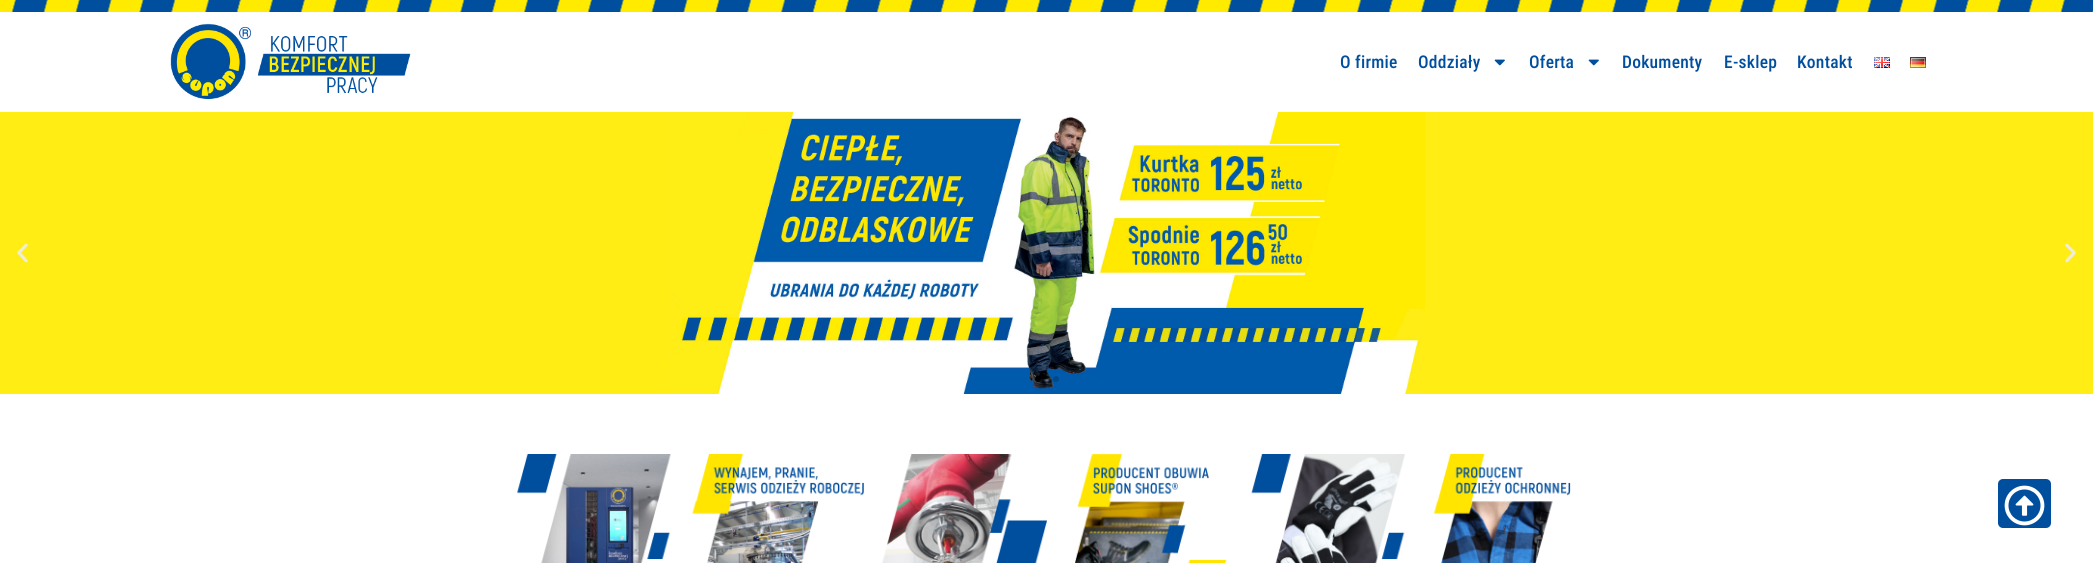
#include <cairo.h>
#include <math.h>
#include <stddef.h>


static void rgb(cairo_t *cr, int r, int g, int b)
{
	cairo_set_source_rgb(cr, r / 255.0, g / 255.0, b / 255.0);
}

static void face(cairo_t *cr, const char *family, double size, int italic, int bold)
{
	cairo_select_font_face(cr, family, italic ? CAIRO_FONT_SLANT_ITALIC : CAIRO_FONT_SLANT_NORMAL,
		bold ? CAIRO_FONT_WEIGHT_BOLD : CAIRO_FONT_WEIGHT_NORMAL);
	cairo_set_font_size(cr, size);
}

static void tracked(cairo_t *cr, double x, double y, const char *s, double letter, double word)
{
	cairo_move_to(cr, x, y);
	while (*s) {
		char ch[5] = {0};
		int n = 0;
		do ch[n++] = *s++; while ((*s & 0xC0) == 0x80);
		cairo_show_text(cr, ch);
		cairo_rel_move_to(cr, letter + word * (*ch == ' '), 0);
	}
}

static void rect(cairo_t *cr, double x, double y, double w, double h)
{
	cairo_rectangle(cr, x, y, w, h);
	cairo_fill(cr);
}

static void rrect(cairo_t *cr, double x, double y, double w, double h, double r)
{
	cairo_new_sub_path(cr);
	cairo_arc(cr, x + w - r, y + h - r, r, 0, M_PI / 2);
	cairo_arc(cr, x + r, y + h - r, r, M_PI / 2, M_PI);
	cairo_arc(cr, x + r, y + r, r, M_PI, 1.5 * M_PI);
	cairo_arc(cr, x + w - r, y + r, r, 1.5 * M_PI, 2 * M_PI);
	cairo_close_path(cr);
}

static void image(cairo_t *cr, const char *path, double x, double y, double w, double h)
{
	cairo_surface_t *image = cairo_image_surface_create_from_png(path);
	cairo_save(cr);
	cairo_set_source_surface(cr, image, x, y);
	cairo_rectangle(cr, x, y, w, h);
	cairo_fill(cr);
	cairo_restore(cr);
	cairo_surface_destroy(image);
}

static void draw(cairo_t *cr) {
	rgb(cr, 255, 255, 255);
	cairo_paint(cr);
	image(cr, "image0.png", 0, 0, 2093, 12);
	image(cr, "image1.png", 170, 23, 241, 77);
	face(cr, "Roboto Condensed Medium", 17.5, 0, 0);
	rgb(cr, 0, 79, 158);
	tracked(cr, 1340, 68, "O firmie", 0.25, 0);
	tracked(cr, 1418, 68, "Oddziały", 0.25, 0);
	image(cr, "image2.png", 1494, 59, 11, 7);
	tracked(cr, 1529, 68, "Oferta", 0.25, 0);
	image(cr, "image2.png", 1588, 59, 11, 7);
	tracked(cr, 1622, 68, "Dokumenty", 0.25, 0);
	tracked(cr, 1724, 68, "E-sklep", 0.25, 0);
	tracked(cr, 1797, 68, "Kontakt", 0.25, 0);
	image(cr, "image3.png", 1874, 57, 16, 11);
	image(cr, "image4.png", 1910, 57, 16, 11);
	rgb(cr, 255, 237, 20);
	rect(cr, 0, 112, 2093, 282);
	image(cr, "image5.png", 669, 112, 756, 282);
	image(cr, "image6.png", 17, 243, 11, 20);
	image(cr, "image7.png", 2065, 243, 11, 20);
	rgb(cr, 0, 0, 0);
	cairo_arc(cr, 1038, 379, 3, 0, 2 * M_PI);
	cairo_fill(cr);
	rgb(cr, 0, 73, 138);
	cairo_arc(cr, 1056, 379, 3, 0, 2 * M_PI);
	cairo_fill(cr);
	image(cr, "image8.png", 517, 454, 154, 109);
	image(cr, "image9.png", 692, 454, 172, 109);
	image(cr, "image10.png", 882, 454, 165, 109);
	image(cr, "image11.png", 1075, 454, 152, 109);
	image(cr, "image12.png", 1251, 454, 154, 109);
	image(cr, "image13.png", 1433, 454, 138, 109);
	rgb(cr, 0, 79, 158);
	rrect(cr, 1998, 479, 53, 49, 5);
	cairo_fill(cr);
	image(cr, "image14.png", 2004, 485, 41, 41);
}

int main(void) {
	cairo_surface_t *surface = cairo_image_surface_create(CAIRO_FORMAT_RGB24, 2093, 563);
	cairo_t *cr = cairo_create(surface);
	cairo_font_options_t *options = cairo_font_options_create();
	cairo_font_options_set_hint_metrics(options, CAIRO_HINT_METRICS_OFF);
	cairo_font_options_set_hint_style(options, CAIRO_HINT_STYLE_NONE);
	cairo_set_font_options(cr, options);
	cairo_set_miter_limit(cr, 4);
	draw(cr);
	cairo_surface_write_to_png(surface, "render.png");
	cairo_font_options_destroy(options);
	cairo_destroy(cr);
	cairo_surface_destroy(surface);
	return 0;
}
